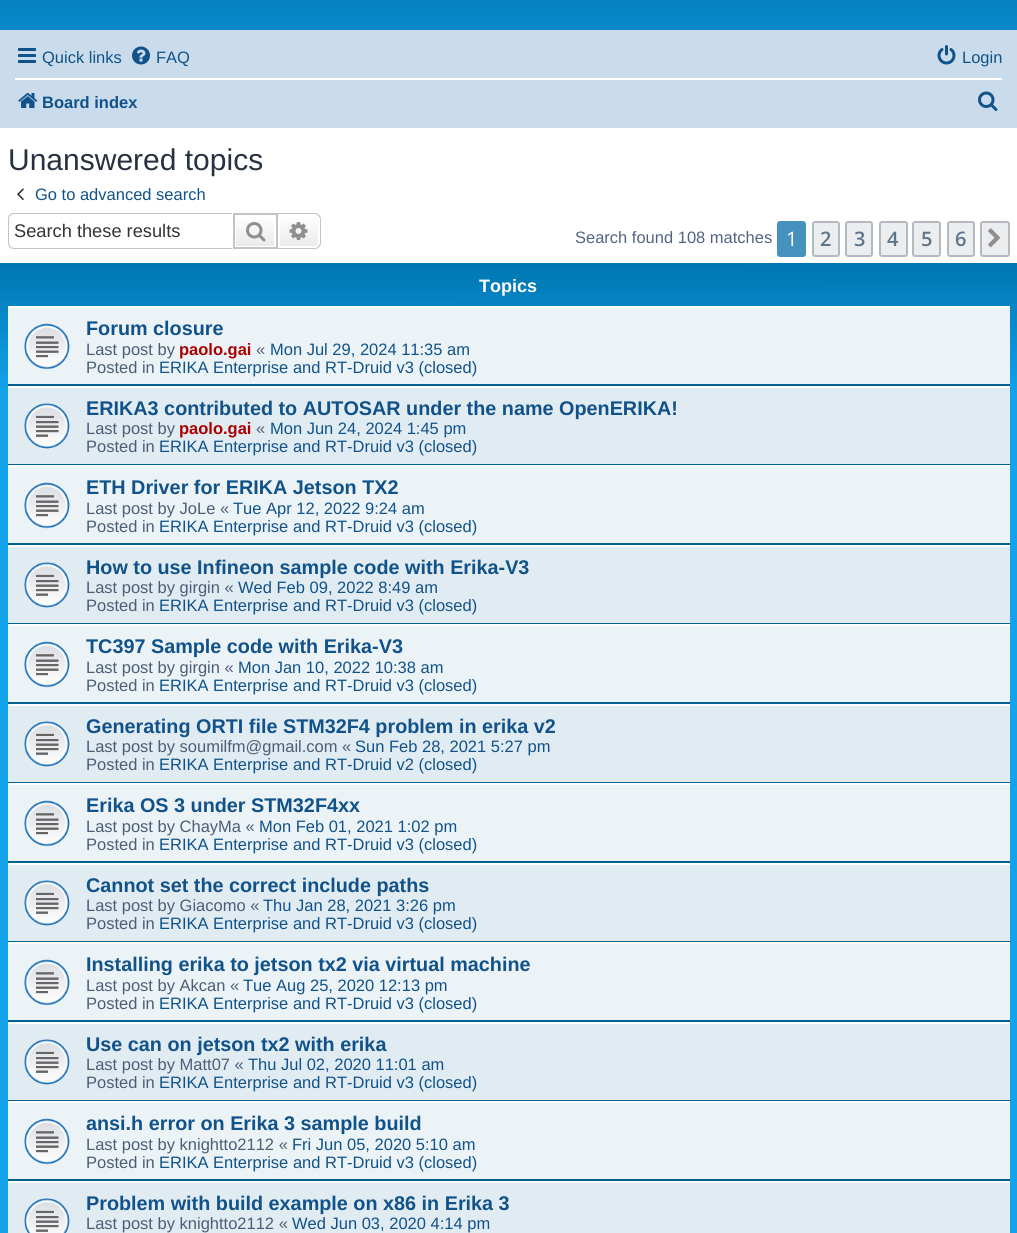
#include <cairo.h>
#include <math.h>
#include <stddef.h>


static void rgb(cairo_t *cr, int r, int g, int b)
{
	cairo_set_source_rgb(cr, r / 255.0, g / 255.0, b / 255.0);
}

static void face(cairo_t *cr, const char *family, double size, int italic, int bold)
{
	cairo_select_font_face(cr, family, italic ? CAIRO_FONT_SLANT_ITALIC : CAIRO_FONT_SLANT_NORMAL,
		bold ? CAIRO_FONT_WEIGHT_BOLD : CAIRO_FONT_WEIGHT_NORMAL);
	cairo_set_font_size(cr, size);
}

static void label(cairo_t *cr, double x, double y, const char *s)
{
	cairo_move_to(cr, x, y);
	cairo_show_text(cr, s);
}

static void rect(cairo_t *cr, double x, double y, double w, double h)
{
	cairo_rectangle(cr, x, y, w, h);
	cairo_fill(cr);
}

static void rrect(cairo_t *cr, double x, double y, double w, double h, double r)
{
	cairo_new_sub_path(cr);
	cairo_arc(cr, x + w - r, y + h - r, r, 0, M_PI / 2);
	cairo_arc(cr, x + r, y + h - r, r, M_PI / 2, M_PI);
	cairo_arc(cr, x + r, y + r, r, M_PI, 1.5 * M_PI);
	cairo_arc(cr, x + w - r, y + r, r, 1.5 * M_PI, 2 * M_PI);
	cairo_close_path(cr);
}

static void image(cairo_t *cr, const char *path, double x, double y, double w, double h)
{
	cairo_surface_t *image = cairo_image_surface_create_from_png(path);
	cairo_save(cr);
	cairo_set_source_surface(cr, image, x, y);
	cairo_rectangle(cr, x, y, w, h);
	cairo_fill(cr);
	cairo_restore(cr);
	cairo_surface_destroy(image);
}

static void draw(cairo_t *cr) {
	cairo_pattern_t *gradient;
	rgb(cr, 255, 255, 255);
	cairo_paint(cr);
	gradient = cairo_pattern_create_linear(509, -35, 509, 103);
	cairo_pattern_add_color_stop_rgba(gradient, 0, 0.416, 0.808, 1, 1);
	cairo_pattern_add_color_stop_rgba(gradient, 0.02, 0, 0.463, 0.694, 1);
	cairo_pattern_add_color_stop_rgba(gradient, 1, 0.071, 0.639, 0.922, 1);
	cairo_set_source(cr, gradient);
	cairo_pattern_destroy(gradient);
	rect(cr, 0, 0, 1017, 30);
	rgb(cr, 202, 220, 235);
	rect(cr, 0, 30, 1017, 98);
	image(cr, "image0.png", 18, 48, 18, 15);
	face(cr, "Liberation Sans", 16.5, 0, 0);
	rgb(cr, 16, 82, 137);
	label(cr, 42, 63, "Quick links");
	image(cr, "image1.png", 132, 46, 18, 19);
	label(cr, 156, 63, "FAQ");
	image(cr, "image2.png", 937, 45, 19, 20);
	label(cr, 962, 63, "Login");
	rgb(cr, 255, 255, 255);
	rect(cr, 15, 78, 987, 2);
	image(cr, "image3.png", 18, 93, 20, 15);
	face(cr, "Liberation Sans", 16.5, 0, 1);
	rgb(cr, 16, 82, 137);
	label(cr, 42, 108, "Board index");
	image(cr, "image4.png", 978, 91, 20, 20);
	face(cr, "Liberation Sans", 30, 0, 0);
	rgb(cr, 40, 49, 63);
	label(cr, 8, 170, "Unanswered topics");
	image(cr, "image5.png", 17, 188, 7, 12);
	face(cr, "Liberation Sans", 16.5, 0, 0);
	rgb(cr, 16, 82, 137);
	label(cr, 35, 200, "Go to advanced search");
	rgb(cr, 199, 195, 191);
	cairo_set_fill_rule(cr, CAIRO_FILL_RULE_EVEN_ODD);
	cairo_new_path(cr);
	cairo_move_to(cr, 14, 213);
	cairo_line_to(cr, 232, 213);
	cairo_line_to(cr, 232, 249);
	cairo_line_to(cr, 14, 249);
	cairo_curve_to(cr, 10, 249, 8, 246, 8, 243);
	cairo_line_to(cr, 8, 219);
	cairo_curve_to(cr, 8, 216, 10, 213, 14, 213);
	cairo_close_path(cr);
	cairo_move_to(cr, 14, 214);
	cairo_line_to(cr, 232, 214);
	cairo_line_to(cr, 232, 248);
	cairo_line_to(cr, 14, 248);
	cairo_curve_to(cr, 11, 248, 9, 245, 9, 243);
	cairo_line_to(cr, 9, 219);
	cairo_curve_to(cr, 9, 217, 11, 214, 14, 214);
	cairo_close_path(cr);
	cairo_fill(cr);
	face(cr, "Liberation Sans", 18.25, 0, 0);
	rgb(cr, 51, 51, 51);
	label(cr, 14, 237, "Search these results");
	gradient = cairo_pattern_create_linear(255, 215, 255, 248);
	cairo_pattern_add_color_stop_rgba(gradient, 0, 1, 1, 1, 1);
	cairo_pattern_add_color_stop_rgba(gradient, 1, 0.914, 0.914, 0.914, 1);
	cairo_set_source(cr, gradient);
	cairo_pattern_destroy(gradient);
	rect(cr, 236, 219, 38, 27);
	cairo_rectangle(cr, 234, 214, 43, 34);
	rgb(cr, 199, 195, 191);
	cairo_stroke(cr);
	image(cr, "image6.png", 246, 222, 20, 20);
	gradient = cairo_pattern_create_linear(299, 215, 299, 248);
	cairo_pattern_add_color_stop_rgba(gradient, 0, 1, 1, 1, 1);
	cairo_pattern_add_color_stop_rgba(gradient, 1, 0.914, 0.914, 0.914, 1);
	cairo_set_source(cr, gradient);
	cairo_pattern_destroy(gradient);
	cairo_new_path(cr);
	cairo_move_to(cr, 279, 216);
	cairo_line_to(cr, 315, 216);
	cairo_curve_to(cr, 317, 216, 319, 218, 319, 220);
	cairo_line_to(cr, 319, 243);
	cairo_curve_to(cr, 319, 245, 317, 247, 315, 247);
	cairo_line_to(cr, 279, 247);
	cairo_close_path(cr);
	cairo_fill_preserve(cr);
	rgb(cr, 255, 255, 255);
	cairo_stroke(cr);
	rgb(cr, 199, 195, 191);
	cairo_new_path(cr);
	cairo_move_to(cr, 278, 213);
	cairo_line_to(cr, 315, 213);
	cairo_curve_to(cr, 318, 213, 321, 216, 321, 219);
	cairo_line_to(cr, 321, 243);
	cairo_curve_to(cr, 321, 246, 318, 249, 315, 249);
	cairo_line_to(cr, 278, 249);
	cairo_close_path(cr);
	cairo_move_to(cr, 278, 214);
	cairo_line_to(cr, 315, 214);
	cairo_curve_to(cr, 317, 214, 320, 217, 320, 219);
	cairo_line_to(cr, 320, 243);
	cairo_curve_to(cr, 320, 245, 317, 248, 315, 248);
	cairo_line_to(cr, 278, 248);
	cairo_close_path(cr);
	cairo_fill(cr);
	image(cr, "image7.png", 289, 222, 19, 18);
	face(cr, "Liberation Sans", 16.5, 0, 0);
	rgb(cr, 83, 100, 130);
	label(cr, 575, 243, "Search found 108 matches");
	rgb(cr, 70, 146, 191);
	rrect(cr, 778, 222, 27, 34, 2);
	cairo_fill_preserve(cr);
	cairo_stroke(cr);
	face(cr, "Open Sans", 20, 0, 0);
	rgb(cr, 255, 255, 255);
	label(cr, 786, 246, "1");
	rgb(cr, 236, 237, 238);
	rrect(cr, 813, 222, 26, 34, 2);
	cairo_fill_preserve(cr);
	rgb(cr, 180, 186, 192);
	cairo_stroke(cr);
	face(cr, "Open Sans SemiBold", 20, 0, 0);
	rgb(cr, 92, 117, 140);
	label(cr, 820, 246, "2");
	rgb(cr, 236, 237, 238);
	rrect(cr, 846, 222, 26, 34, 2);
	cairo_fill_preserve(cr);
	rgb(cr, 180, 186, 192);
	cairo_stroke(cr);
	rgb(cr, 92, 117, 140);
	label(cr, 854, 246, "3");
	rgb(cr, 236, 237, 238);
	rrect(cr, 880, 222, 27, 34, 2);
	cairo_fill_preserve(cr);
	rgb(cr, 180, 186, 192);
	cairo_stroke(cr);
	rgb(cr, 92, 117, 140);
	label(cr, 887, 246, "4");
	rgb(cr, 236, 237, 238);
	rrect(cr, 913, 222, 27, 34, 2);
	cairo_fill_preserve(cr);
	rgb(cr, 180, 186, 192);
	cairo_stroke(cr);
	rgb(cr, 92, 117, 140);
	label(cr, 921, 246, "5");
	rgb(cr, 236, 237, 238);
	rrect(cr, 948, 222, 26, 34, 2);
	cairo_fill_preserve(cr);
	rgb(cr, 180, 186, 192);
	cairo_stroke(cr);
	rgb(cr, 92, 117, 140);
	label(cr, 955, 246, "6");
	rgb(cr, 236, 237, 238);
	rrect(cr, 981, 222, 28, 34, 2);
	cairo_fill_preserve(cr);
	rgb(cr, 180, 186, 192);
	cairo_stroke(cr);
	image(cr, "image8.png", 988, 228, 13, 20);
	gradient = cairo_pattern_create_linear(508, 263, 509, 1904);
	cairo_pattern_add_color_stop_rgba(gradient, 0, 0.416, 0.808, 1, 1);
	cairo_pattern_add_color_stop_rgba(gradient, 0, 0, 0.463, 0.694, 1);
	cairo_pattern_add_color_stop_rgba(gradient, 0.08, 0.071, 0.639, 0.922, 1);
	cairo_pattern_add_color_stop_rgba(gradient, 1, 0.071, 0.639, 0.922, 1);
	cairo_set_source(cr, gradient);
	cairo_pattern_destroy(gradient);
	rect(cr, 0, 263, 1017, 970);
	face(cr, "Liberation Sans", 18, 0, 1);
	rgb(cr, 255, 255, 255);
	label(cr, 479, 292, "Topics");
	rgb(cr, 236, 243, 247);
	rect(cr, 8, 308, 1002, 76);
	rgb(cr, 255, 255, 255);
	rect(cr, 8, 306, 1002, 2);
	rgb(cr, 0, 96, 143);
	rect(cr, 8, 384, 1002, 2);
	image(cr, "image9.png", 24, 323, 46, 47);
	face(cr, "Liberation Sans", 19.8, 0, 1);
	rgb(cr, 16, 82, 137);
	label(cr, 86, 335, "Forum closure");
	face(cr, "Liberation Sans", 16.5, 0, 0);
	rgb(cr, 76, 93, 119);
	label(cr, 86, 355, "Last post by");
	face(cr, "Liberation Sans", 16.5, 0, 1);
	rgb(cr, 170, 0, 0);
	label(cr, 179, 355, "paolo.gai");
	face(cr, "Liberation Sans", 16.5, 0, 0);
	rgb(cr, 76, 93, 119);
	label(cr, 256, 355, "«");
	rgb(cr, 16, 82, 137);
	label(cr, 270, 355, "Mon Jul 29, 2024 11:35 am");
	rgb(cr, 76, 93, 119);
	label(cr, 86, 373, "Posted in");
	rgb(cr, 16, 82, 137);
	label(cr, 159, 373, "ERIKA Enterprise and RT-Druid v3 (closed)");
	rgb(cr, 225, 235, 242);
	rect(cr, 8, 388, 1002, 76);
	rgb(cr, 255, 255, 255);
	rect(cr, 8, 386, 1002, 2);
	rgb(cr, 0, 96, 143);
	rect(cr, 8, 464, 1002, 1);
	image(cr, "image10.png", 24, 403, 46, 46);
	face(cr, "Liberation Sans", 19.8, 0, 1);
	rgb(cr, 16, 82, 137);
	label(cr, 86, 415, "ERIKA3 contributed to AUTOSAR under the name OpenERIKA!");
	face(cr, "Liberation Sans", 16.5, 0, 0);
	rgb(cr, 76, 93, 119);
	label(cr, 86, 434, "Last post by");
	face(cr, "Liberation Sans", 16.5, 0, 1);
	rgb(cr, 170, 0, 0);
	label(cr, 179, 434, "paolo.gai");
	face(cr, "Liberation Sans", 16.5, 0, 0);
	rgb(cr, 76, 93, 119);
	label(cr, 256, 434, "«");
	rgb(cr, 16, 82, 137);
	label(cr, 270, 434, "Mon Jun 24, 2024 1:45 pm");
	rgb(cr, 76, 93, 119);
	label(cr, 86, 452, "Posted in");
	rgb(cr, 16, 82, 137);
	label(cr, 159, 452, "ERIKA Enterprise and RT-Druid v3 (closed)");
	rgb(cr, 236, 243, 247);
	rect(cr, 8, 467, 1002, 76);
	rgb(cr, 255, 255, 255);
	rect(cr, 8, 465, 1002, 2);
	rgb(cr, 0, 96, 143);
	rect(cr, 8, 543, 1002, 2);
	image(cr, "image9.png", 24, 482, 46, 47);
	face(cr, "Liberation Sans", 19.8, 0, 1);
	rgb(cr, 16, 82, 137);
	label(cr, 86, 494, "ETH Driver for ERIKA Jetson TX2");
	face(cr, "Liberation Sans", 16.5, 0, 0);
	rgb(cr, 76, 93, 119);
	label(cr, 86, 514, "Last post by JoLe «");
	rgb(cr, 16, 82, 137);
	label(cr, 233, 514, "Tue Apr 12, 2022 9:24 am");
	rgb(cr, 76, 93, 119);
	label(cr, 86, 532, "Posted in");
	rgb(cr, 16, 82, 137);
	label(cr, 159, 532, "ERIKA Enterprise and RT-Druid v3 (closed)");
	rgb(cr, 225, 235, 242);
	rect(cr, 8, 547, 1002, 76);
	rgb(cr, 255, 255, 255);
	rect(cr, 8, 545, 1002, 2);
	rgb(cr, 0, 96, 143);
	rect(cr, 8, 623, 1002, 1);
	image(cr, "image10.png", 24, 562, 46, 46);
	face(cr, "Liberation Sans", 19.8, 0, 1);
	rgb(cr, 16, 82, 137);
	label(cr, 86, 574, "How to use Infineon sample code with Erika-V3");
	face(cr, "Liberation Sans", 16.5, 0, 0);
	rgb(cr, 76, 93, 119);
	label(cr, 86, 593, "Last post by girgin «");
	rgb(cr, 16, 82, 137);
	label(cr, 238, 593, "Wed Feb 09, 2022 8:49 am");
	rgb(cr, 76, 93, 119);
	label(cr, 86, 611, "Posted in");
	rgb(cr, 16, 82, 137);
	label(cr, 159, 611, "ERIKA Enterprise and RT-Druid v3 (closed)");
	rgb(cr, 236, 243, 247);
	rect(cr, 8, 626, 1002, 76);
	rgb(cr, 255, 255, 255);
	rect(cr, 8, 624, 1002, 2);
	rgb(cr, 0, 96, 143);
	rect(cr, 8, 702, 1002, 2);
	image(cr, "image9.png", 24, 641, 46, 47);
	face(cr, "Liberation Sans", 19.8, 0, 1);
	rgb(cr, 16, 82, 137);
	label(cr, 86, 653, "TC397 Sample code with Erika-V3");
	face(cr, "Liberation Sans", 16.5, 0, 0);
	rgb(cr, 76, 93, 119);
	label(cr, 86, 673, "Last post by girgin «");
	rgb(cr, 16, 82, 137);
	label(cr, 238, 673, "Mon Jan 10, 2022 10:38 am");
	rgb(cr, 76, 93, 119);
	label(cr, 86, 691, "Posted in");
	rgb(cr, 16, 82, 137);
	label(cr, 159, 691, "ERIKA Enterprise and RT-Druid v3 (closed)");
	rgb(cr, 225, 235, 242);
	rect(cr, 8, 706, 1002, 76);
	rgb(cr, 255, 255, 255);
	rect(cr, 8, 704, 1002, 2);
	rgb(cr, 0, 96, 143);
	rect(cr, 8, 782, 1002, 1);
	image(cr, "image10.png", 24, 721, 46, 46);
	face(cr, "Liberation Sans", 19.8, 0, 1);
	rgb(cr, 16, 82, 137);
	label(cr, 86, 733, "Generating ORTI file STM32F4 problem in erika v2");
	face(cr, "Liberation Sans", 16.5, 0, 0);
	rgb(cr, 76, 93, 119);
	label(cr, 86, 752, "Last post by soumilfm@gmail.com «");
	rgb(cr, 16, 82, 137);
	label(cr, 355, 752, "Sun Feb 28, 2021 5:27 pm");
	rgb(cr, 76, 93, 119);
	label(cr, 86, 770, "Posted in");
	rgb(cr, 16, 82, 137);
	label(cr, 159, 770, "ERIKA Enterprise and RT-Druid v2 (closed)");
	rgb(cr, 236, 243, 247);
	rect(cr, 8, 785, 1002, 76);
	rgb(cr, 255, 255, 255);
	rect(cr, 8, 783, 1002, 2);
	rgb(cr, 0, 96, 143);
	rect(cr, 8, 861, 1002, 2);
	image(cr, "image9.png", 24, 800, 46, 47);
	face(cr, "Liberation Sans", 19.8, 0, 1);
	rgb(cr, 16, 82, 137);
	label(cr, 86, 812, "Erika OS 3 under STM32F4xx");
	face(cr, "Liberation Sans", 16.5, 0, 0);
	rgb(cr, 76, 93, 119);
	label(cr, 86, 832, "Last post by ChayMa «");
	rgb(cr, 16, 82, 137);
	label(cr, 259, 832, "Mon Feb 01, 2021 1:02 pm");
	rgb(cr, 76, 93, 119);
	label(cr, 86, 850, "Posted in");
	rgb(cr, 16, 82, 137);
	label(cr, 159, 850, "ERIKA Enterprise and RT-Druid v3 (closed)");
	rgb(cr, 225, 235, 242);
	rect(cr, 8, 865, 1002, 76);
	rgb(cr, 255, 255, 255);
	rect(cr, 8, 863, 1002, 2);
	rgb(cr, 0, 96, 143);
	rect(cr, 8, 941, 1002, 1);
	image(cr, "image10.png", 24, 880, 46, 46);
	face(cr, "Liberation Sans", 19.8, 0, 1);
	rgb(cr, 16, 82, 137);
	label(cr, 86, 892, "Cannot set the correct include paths");
	face(cr, "Liberation Sans", 16.5, 0, 0);
	rgb(cr, 76, 93, 119);
	label(cr, 86, 911, "Last post by Giacomo «");
	rgb(cr, 16, 82, 137);
	label(cr, 263, 911, "Thu Jan 28, 2021 3:26 pm");
	rgb(cr, 76, 93, 119);
	label(cr, 86, 929, "Posted in");
	rgb(cr, 16, 82, 137);
	label(cr, 159, 929, "ERIKA Enterprise and RT-Druid v3 (closed)");
	rgb(cr, 236, 243, 247);
	rect(cr, 8, 944, 1002, 76);
	rgb(cr, 255, 255, 255);
	rect(cr, 8, 942, 1002, 2);
	rgb(cr, 0, 96, 143);
	rect(cr, 8, 1020, 1002, 2);
	image(cr, "image9.png", 24, 959, 46, 47);
	face(cr, "Liberation Sans", 19.8, 0, 1);
	rgb(cr, 16, 82, 137);
	label(cr, 86, 971, "Installing erika to jetson tx2 via virtual machine");
	face(cr, "Liberation Sans", 16.5, 0, 0);
	rgb(cr, 76, 93, 119);
	label(cr, 86, 991, "Last post by Akcan «");
	rgb(cr, 16, 82, 137);
	label(cr, 243, 991, "Tue Aug 25, 2020 12:13 pm");
	rgb(cr, 76, 93, 119);
	label(cr, 86, 1009, "Posted in");
	rgb(cr, 16, 82, 137);
	label(cr, 159, 1009, "ERIKA Enterprise and RT-Druid v3 (closed)");
	rgb(cr, 225, 235, 242);
	rect(cr, 8, 1024, 1002, 76);
	rgb(cr, 255, 255, 255);
	rect(cr, 8, 1022, 1002, 2);
	rgb(cr, 0, 96, 143);
	rect(cr, 8, 1100, 1002, 1);
	image(cr, "image10.png", 24, 1039, 46, 46);
	face(cr, "Liberation Sans", 19.8, 0, 1);
	rgb(cr, 16, 82, 137);
	label(cr, 86, 1051, "Use can on jetson tx2 with erika");
	face(cr, "Liberation Sans", 16.5, 0, 0);
	rgb(cr, 76, 93, 119);
	label(cr, 86, 1070, "Last post by Matt07 «");
	rgb(cr, 16, 82, 137);
	label(cr, 248, 1070, "Thu Jul 02, 2020 11:01 am");
	rgb(cr, 76, 93, 119);
	label(cr, 86, 1088, "Posted in");
	rgb(cr, 16, 82, 137);
	label(cr, 159, 1088, "ERIKA Enterprise and RT-Druid v3 (closed)");
	rgb(cr, 236, 243, 247);
	rect(cr, 8, 1103, 1002, 76);
	rgb(cr, 255, 255, 255);
	rect(cr, 8, 1101, 1002, 2);
	rgb(cr, 0, 96, 143);
	rect(cr, 8, 1179, 1002, 2);
	image(cr, "image9.png", 24, 1118, 46, 47);
	face(cr, "Liberation Sans", 19.8, 0, 1);
	rgb(cr, 16, 82, 137);
	label(cr, 86, 1130, "ansi.h error on Erika 3 sample build");
	face(cr, "Liberation Sans", 16.5, 0, 0);
	rgb(cr, 76, 93, 119);
	label(cr, 86, 1150, "Last post by knightto2112 «");
	rgb(cr, 16, 82, 137);
	label(cr, 292, 1150, "Fri Jun 05, 2020 5:10 am");
	rgb(cr, 76, 93, 119);
	label(cr, 86, 1168, "Posted in");
	rgb(cr, 16, 82, 137);
	label(cr, 159, 1168, "ERIKA Enterprise and RT-Druid v3 (closed)");
	rgb(cr, 225, 235, 242);
	rect(cr, 8, 1183, 1002, 50);
	rgb(cr, 255, 255, 255);
	rect(cr, 8, 1181, 1002, 2);
	image(cr, "image11.png", 24, 1198, 46, 35);
	face(cr, "Liberation Sans", 19.8, 0, 1);
	rgb(cr, 16, 82, 137);
	label(cr, 86, 1210, "Problem with build example on x86 in Erika 3");
	face(cr, "Liberation Sans", 16.5, 0, 0);
	rgb(cr, 76, 93, 119);
	label(cr, 86, 1229, "Last post by knightto2112 «");
	rgb(cr, 16, 82, 137);
	label(cr, 292, 1229, "Wed Jun 03, 2020 4:14 pm");
}

int main(void) {
	cairo_surface_t *surface = cairo_image_surface_create(CAIRO_FORMAT_RGB24, 1017, 1233);
	cairo_t *cr = cairo_create(surface);
	cairo_font_options_t *options = cairo_font_options_create();
	cairo_font_options_set_hint_metrics(options, CAIRO_HINT_METRICS_OFF);
	cairo_font_options_set_hint_style(options, CAIRO_HINT_STYLE_NONE);
	cairo_set_font_options(cr, options);
	cairo_set_miter_limit(cr, 4);
	draw(cr);
	cairo_surface_write_to_png(surface, "render.png");
	cairo_font_options_destroy(options);
	cairo_destroy(cr);
	cairo_surface_destroy(surface);
	return 0;
}
